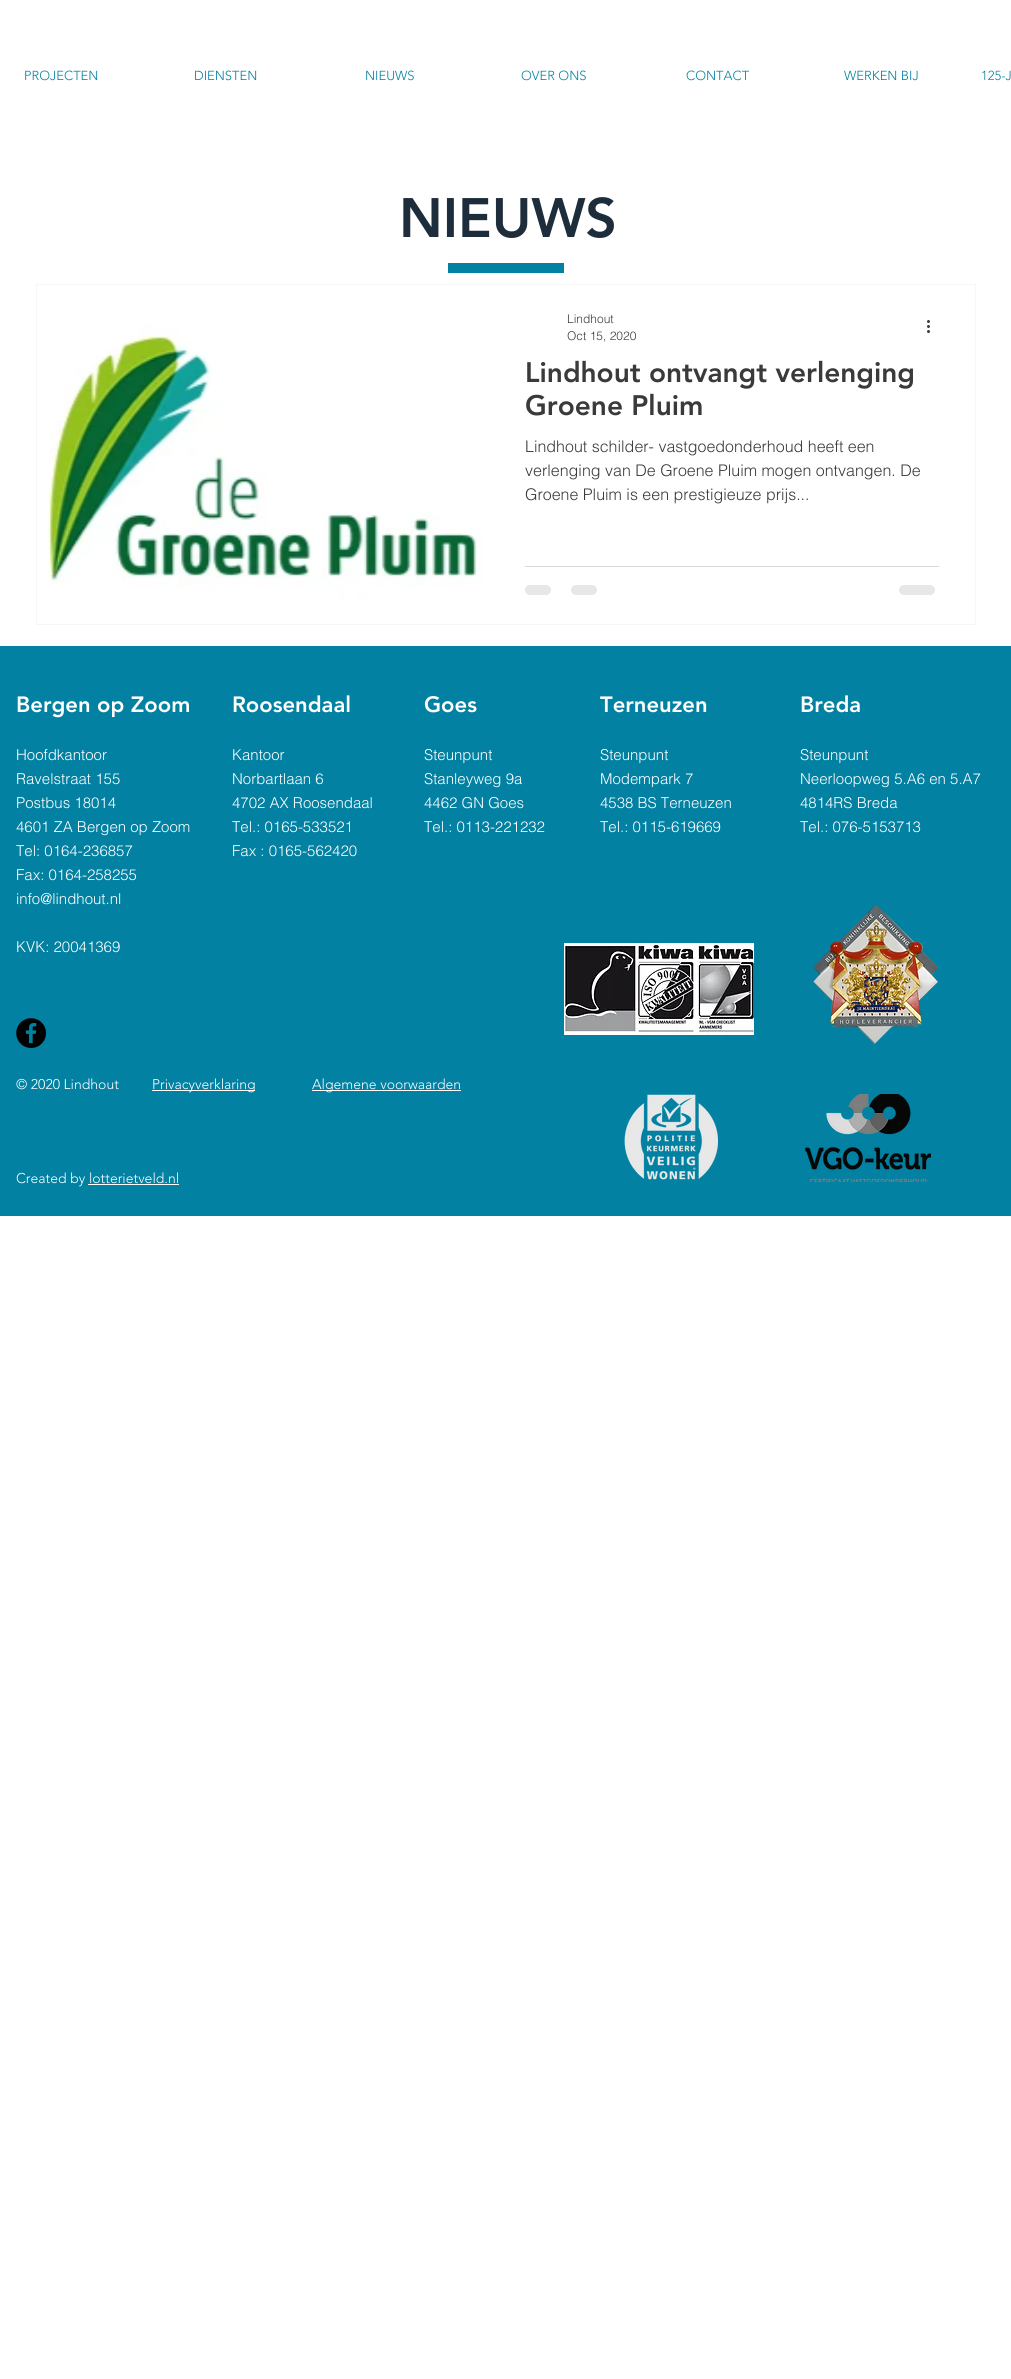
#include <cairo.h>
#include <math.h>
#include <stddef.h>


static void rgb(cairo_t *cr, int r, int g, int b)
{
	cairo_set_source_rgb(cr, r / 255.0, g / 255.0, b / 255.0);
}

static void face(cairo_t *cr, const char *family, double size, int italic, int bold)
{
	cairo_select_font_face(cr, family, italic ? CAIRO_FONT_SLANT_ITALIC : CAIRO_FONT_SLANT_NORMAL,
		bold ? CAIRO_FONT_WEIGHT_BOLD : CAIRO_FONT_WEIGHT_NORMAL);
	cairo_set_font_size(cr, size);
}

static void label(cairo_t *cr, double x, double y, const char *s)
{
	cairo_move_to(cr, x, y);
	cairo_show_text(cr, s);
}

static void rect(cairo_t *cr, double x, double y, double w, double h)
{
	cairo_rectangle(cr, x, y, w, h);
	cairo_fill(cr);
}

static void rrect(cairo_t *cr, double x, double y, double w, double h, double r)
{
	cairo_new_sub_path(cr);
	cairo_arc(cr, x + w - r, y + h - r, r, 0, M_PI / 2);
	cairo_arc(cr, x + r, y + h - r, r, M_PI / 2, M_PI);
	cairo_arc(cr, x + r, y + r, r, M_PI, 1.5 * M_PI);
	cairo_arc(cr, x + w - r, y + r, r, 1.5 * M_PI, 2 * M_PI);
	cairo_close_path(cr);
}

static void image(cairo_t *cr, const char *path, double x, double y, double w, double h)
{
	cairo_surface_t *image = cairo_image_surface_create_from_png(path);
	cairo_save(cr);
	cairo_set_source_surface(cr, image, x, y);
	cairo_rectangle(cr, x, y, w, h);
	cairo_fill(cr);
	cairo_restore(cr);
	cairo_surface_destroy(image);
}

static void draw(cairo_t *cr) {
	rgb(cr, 255, 255, 255);
	cairo_paint(cr);
	face(cr, "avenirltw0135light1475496 Light", 13, 0, 0);
	rgb(cr, 2, 129, 162);
	label(cr, 24, 80, "PROJECTEN");
	label(cr, 194, 80, "DIENSTEN");
	label(cr, 365, 80, "NIEUWS");
	label(cr, 521, 80, "OVER ONS");
	label(cr, 686, 80, "CONTACT");
	label(cr, 844, 80, "WERKEN BIJ");
	label(cr, 981, 80, "125-J");
	face(cr, "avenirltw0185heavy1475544 Black", 55, 0, 0);
	rgb(cr, 30, 45, 59);
	label(cr, 399, 237, "NIEUWS");
	rgb(cr, 2, 129, 162);
	rect(cr, 448, 263, 116, 10);
	cairo_rectangle(cr, 36.5, 284.5, 939, 340);
	rgb(cr, 247, 247, 247);
	cairo_set_line_width(cr, 1);
	cairo_stroke(cr);
	image(cr, "image1.png", 488, 285, 2, 339);
	image(cr, "image0.png", 37, 285, 453, 339);
	face(cr, "helvetica Light", 12, 0, 0);
	rgb(cr, 59, 58, 58);
	label(cr, 567, 323, "Lindhout");
	label(cr, 567, 340, "Oct 15, 2020");
	image(cr, "image2.png", 927, 320, 3, 13);
	face(cr, "avenirltw0185heavy1475544 Black", 28, 0, 0);
	label(cr, 525, 382, "Lindhout ontvangt verlenging");
	label(cr, 525, 415, "Groene Pluim");
	face(cr, "helvetica Light", 16, 0, 0);
	label(cr, 525, 452, "Lindhout schilder- vastgoedonderhoud heeft een");
	label(cr, 525, 476, "verlenging van De Groene Pluim mogen ontvangen. De");
	label(cr, 525, 500, "Groene Pluim is een prestigieuze prijs...");
	rgb(cr, 216, 216, 216);
	rect(cr, 525, 566, 414, 1);
	rgb(cr, 231, 231, 231);
	rrect(cr, 525, 585, 26, 10, 5);
	cairo_fill(cr);
	rrect(cr, 571, 585, 26, 10, 5);
	cairo_fill(cr);
	rrect(cr, 899, 585, 36, 10, 5);
	cairo_fill(cr);
	rgb(cr, 2, 129, 162);
	rect(cr, 0, 646, 1011, 570);
	face(cr, "avenirltw0185heavy1475544 Black", 22, 0, 0);
	rgb(cr, 255, 255, 255);
	label(cr, 16, 712, "Bergen op Zoom");
	face(cr, "helvetica Light", 15, 0, 0);
	label(cr, 16, 760, "Hoofdkantoor");
	label(cr, 16, 784, "Ravelstraat 155");
	label(cr, 16, 808, "Postbus 18014");
	label(cr, 16, 832, "4601 ZA Bergen op Zoom");
	label(cr, 16, 856, "Tel: 0164-236857");
	label(cr, 16, 880, "Fax: 0164-258255");
	label(cr, 16, 904, "info@lindhout.nl");
	label(cr, 16, 952, "KVK: 20041369");
	face(cr, "avenirltw0185heavy1475544 Black", 22, 0, 0);
	label(cr, 232, 712, "Roosendaal");
	face(cr, "helvetica Light", 15, 0, 0);
	label(cr, 232, 760, "Kantoor");
	label(cr, 232, 784, "Norbartlaan 6");
	label(cr, 232, 808, "4702 AX Roosendaal");
	label(cr, 232, 832, "Tel.: 0165-533521");
	label(cr, 232, 856, "Fax : 0165-562420");
	face(cr, "avenirltw0185heavy1475544 Black", 22, 0, 0);
	label(cr, 424, 712, "Goes");
	face(cr, "helvetica Light", 15, 0, 0);
	label(cr, 424, 760, "Steunpunt");
	label(cr, 424, 784, "Stanleyweg 9a");
	label(cr, 424, 808, "4462 GN Goes");
	label(cr, 424, 832, "Tel.: 0113-221232");
	face(cr, "avenirltw0185heavy1475544 Black", 22, 0, 0);
	label(cr, 600, 712, "Terneuzen");
	face(cr, "helvetica Light", 15, 0, 0);
	label(cr, 600, 760, "Steunpunt");
	label(cr, 600, 784, "Modempark 7");
	label(cr, 600, 808, "4538 BS Terneuzen");
	label(cr, 600, 832, "Tel.: 0115-619669");
	face(cr, "avenirltw0185heavy1475544 Black", 22, 0, 0);
	label(cr, 800, 712, "Breda");
	face(cr, "helvetica Light", 15, 0, 0);
	label(cr, 800, 760, "Steunpunt");
	label(cr, 800, 784, "Neerloopweg 5.A6 en 5.A7");
	label(cr, 800, 808, "4814RS Breda");
	label(cr, 800, 832, "Tel.: 076-5153713");
	image(cr, "image3.png", 16, 1018, 30, 30);
	image(cr, "image4.png", 564, 943, 190, 92);
	image(cr, "image5.png", 813, 904, 126, 141);
	face(cr, "avenirltw0135light1475496 Light", 14, 0, 0);
	label(cr, 16, 1089, "© 2020 Lindhout");
	rect(cr, 152, 1090, 103, 1);
	label(cr, 152, 1089, "Privacyverklaring");
	rect(cr, 312, 1090, 149, 1);
	label(cr, 312, 1089, "Algemene voorwaarden");
	label(cr, 16, 1183, "Created by lotterietveld.nl");
	rect(cr, 88, 1184, 91, 1);
	image(cr, "image6.png", 624, 1094, 94, 86);
	image(cr, "image7.png", 805, 1094, 126, 88);
}

int main(void) {
	cairo_surface_t *surface = cairo_image_surface_create(CAIRO_FORMAT_RGB24, 1011, 2379);
	cairo_t *cr = cairo_create(surface);
	cairo_font_options_t *options = cairo_font_options_create();
	cairo_font_options_set_hint_metrics(options, CAIRO_HINT_METRICS_OFF);
	cairo_font_options_set_hint_style(options, CAIRO_HINT_STYLE_NONE);
	cairo_set_font_options(cr, options);
	cairo_set_miter_limit(cr, 4);
	draw(cr);
	cairo_surface_write_to_png(surface, "render.png");
	cairo_font_options_destroy(options);
	cairo_destroy(cr);
	cairo_surface_destroy(surface);
	return 0;
}
